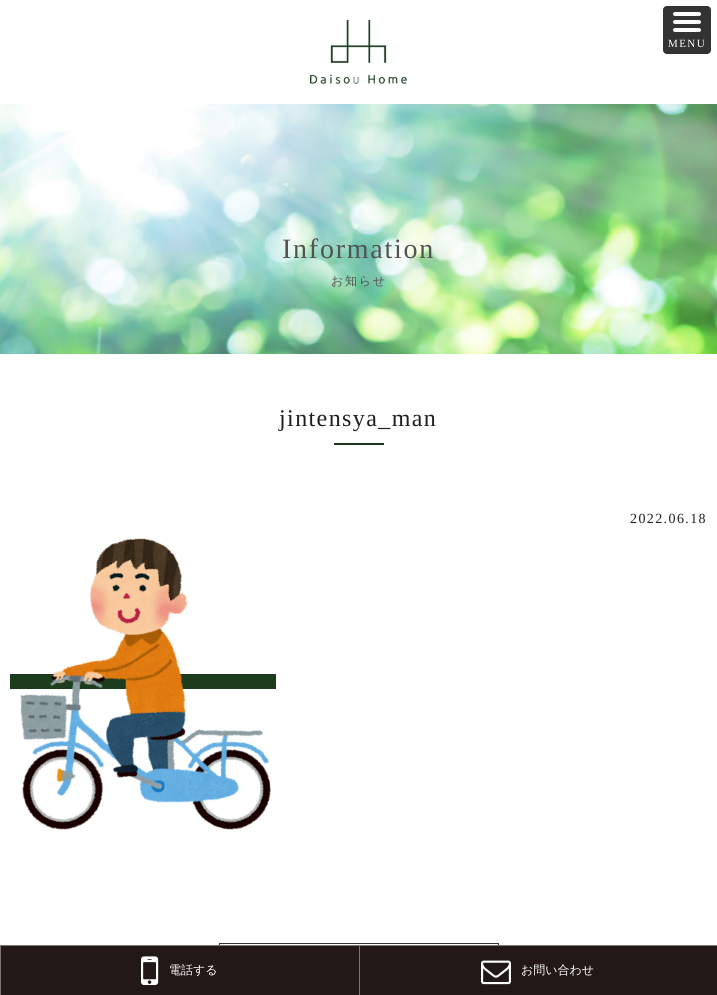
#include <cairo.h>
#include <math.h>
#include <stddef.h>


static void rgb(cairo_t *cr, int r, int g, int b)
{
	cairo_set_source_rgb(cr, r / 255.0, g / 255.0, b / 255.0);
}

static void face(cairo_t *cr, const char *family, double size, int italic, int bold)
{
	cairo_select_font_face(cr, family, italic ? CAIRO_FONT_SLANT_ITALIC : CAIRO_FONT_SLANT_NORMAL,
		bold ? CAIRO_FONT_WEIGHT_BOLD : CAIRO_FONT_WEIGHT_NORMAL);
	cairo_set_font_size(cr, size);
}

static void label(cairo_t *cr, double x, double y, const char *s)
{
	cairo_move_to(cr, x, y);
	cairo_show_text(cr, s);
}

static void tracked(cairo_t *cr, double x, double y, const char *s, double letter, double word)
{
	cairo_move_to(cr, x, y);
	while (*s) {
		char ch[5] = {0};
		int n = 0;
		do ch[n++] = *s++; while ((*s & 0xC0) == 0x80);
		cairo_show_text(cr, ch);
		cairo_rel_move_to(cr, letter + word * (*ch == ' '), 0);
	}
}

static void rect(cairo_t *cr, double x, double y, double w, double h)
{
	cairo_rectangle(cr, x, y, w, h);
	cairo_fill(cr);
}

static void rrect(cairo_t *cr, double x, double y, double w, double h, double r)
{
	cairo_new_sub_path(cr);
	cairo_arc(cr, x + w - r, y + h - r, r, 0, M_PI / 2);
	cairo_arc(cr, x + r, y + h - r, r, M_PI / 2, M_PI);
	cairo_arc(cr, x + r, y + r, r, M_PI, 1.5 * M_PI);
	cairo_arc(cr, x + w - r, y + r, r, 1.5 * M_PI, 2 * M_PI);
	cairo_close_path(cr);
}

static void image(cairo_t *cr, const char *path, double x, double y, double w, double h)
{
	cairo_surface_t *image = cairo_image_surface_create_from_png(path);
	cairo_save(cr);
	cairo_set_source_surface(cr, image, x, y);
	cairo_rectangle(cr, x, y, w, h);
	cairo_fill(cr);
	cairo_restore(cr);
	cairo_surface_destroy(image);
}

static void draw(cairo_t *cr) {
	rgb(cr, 255, 255, 255);
	cairo_paint(cr);
	rgb(cr, 51, 51, 51);
	rrect(cr, 662.5, 5.5, 49, 49, 4.5);
	cairo_fill_preserve(cr);
	rgb(cr, 255, 255, 255);
	cairo_set_line_width(cr, 1);
	cairo_stroke(cr);
	rrect(cr, 673, 12, 28, 4, 2);
	cairo_fill(cr);
	rrect(cr, 673, 20, 28, 4, 2);
	cairo_fill(cr);
	rrect(cr, 673, 28, 28, 4, 2);
	cairo_fill(cr);
	face(cr, "Liberation Serif", 11, 0, 0);
	tracked(cr, 668, 47, "MENU", 1.4, 0);
	image(cr, "image0.png", 310, 20, 97, 64);
	image(cr, "image1.png", 0, 104, 717, 250);
	face(cr, "Liberation Serif", 28, 0, 0);
	rgb(cr, 83, 83, 83);
	tracked(cr, 282, 258, "Information", 1.75, 0);
	face(cr, "WenQuanYi Zen Hei Medium", 12, 0, 0);
	tracked(cr, 331, 285, "お知らせ", 1.75, 0);
	face(cr, "Liberation Serif", 24, 0, 0);
	rgb(cr, 31, 31, 31);
	tracked(cr, 279, 426, "jintensya_man", 1.4, 0);
	rgb(cr, 25, 55, 26);
	rect(cr, 334, 443, 50, 2);
	face(cr, "Liberation Serif", 14, 0, 0);
	rgb(cr, 31, 31, 31);
	tracked(cr, 630, 523, "2022.06.18", 1.4, 0);
	rgb(cr, 29, 59, 29);
	rect(cr, 10, 674, 266, 15);
	image(cr, "image2.png", 20, 538, 251, 292);
	cairo_rectangle(cr, 219.5, 943.5, 279, 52);
	rgb(cr, 51, 51, 51);
	cairo_stroke(cr);
	rgb(cr, 34, 24, 21);
	rect(cr, 1, 946, 716, 49);
	cairo_save(cr);
	cairo_rectangle(cr, 0, 945, 359, 50);
	cairo_clip(cr);
	rgb(cr, 122, 116, 115);
	cairo_set_fill_rule(cr, CAIRO_FILL_RULE_EVEN_ODD);
	cairo_new_path(cr);
	cairo_move_to(cr, -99, 846);
	cairo_line_to(cr, 458, 846);
	cairo_line_to(cr, 458, 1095);
	cairo_line_to(cr, -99, 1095);
	cairo_close_path(cr);
	cairo_move_to(cr, 1, 946);
	cairo_line_to(cr, 360, 946);
	cairo_line_to(cr, 360, 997);
	cairo_line_to(cr, 1, 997);
	cairo_close_path(cr);
	cairo_fill(cr);
	cairo_restore(cr);
	image(cr, "image3.png", 141, 956, 18, 29);
	face(cr, "WenQuanYi Zen Hei Medium", 12, 0, 0);
	rgb(cr, 255, 255, 255);
	label(cr, 169, 974, "電話する");
	cairo_save(cr);
	cairo_rectangle(cr, 359, 945, 358, 50);
	cairo_clip(cr);
	rgb(cr, 122, 116, 115);
	cairo_set_fill_rule(cr, CAIRO_FILL_RULE_EVEN_ODD);
	cairo_new_path(cr);
	cairo_move_to(cr, 260, 846);
	cairo_line_to(cr, 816, 846);
	cairo_line_to(cr, 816, 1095);
	cairo_line_to(cr, 260, 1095);
	cairo_close_path(cr);
	cairo_move_to(cr, 360, 946);
	cairo_line_to(cr, 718, 946);
	cairo_line_to(cr, 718, 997);
	cairo_line_to(cr, 360, 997);
	cairo_close_path(cr);
	cairo_fill(cr);
	cairo_restore(cr);
	image(cr, "image4.png", 481, 960, 30, 25);
	label(cr, 521, 974, "お問い合わせ");
}

int main(void) {
	cairo_surface_t *surface = cairo_image_surface_create(CAIRO_FORMAT_RGB24, 717, 995);
	cairo_t *cr = cairo_create(surface);
	cairo_font_options_t *options = cairo_font_options_create();
	cairo_font_options_set_hint_metrics(options, CAIRO_HINT_METRICS_OFF);
	cairo_font_options_set_hint_style(options, CAIRO_HINT_STYLE_NONE);
	cairo_set_font_options(cr, options);
	cairo_set_miter_limit(cr, 4);
	draw(cr);
	cairo_surface_write_to_png(surface, "render.png");
	cairo_font_options_destroy(options);
	cairo_destroy(cr);
	cairo_surface_destroy(surface);
	return 0;
}
